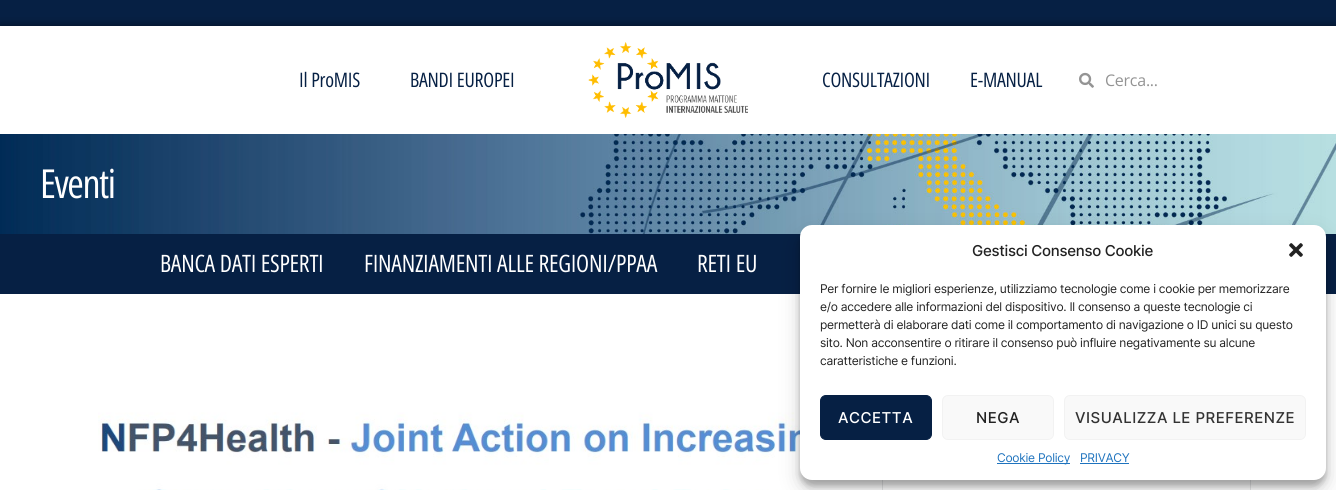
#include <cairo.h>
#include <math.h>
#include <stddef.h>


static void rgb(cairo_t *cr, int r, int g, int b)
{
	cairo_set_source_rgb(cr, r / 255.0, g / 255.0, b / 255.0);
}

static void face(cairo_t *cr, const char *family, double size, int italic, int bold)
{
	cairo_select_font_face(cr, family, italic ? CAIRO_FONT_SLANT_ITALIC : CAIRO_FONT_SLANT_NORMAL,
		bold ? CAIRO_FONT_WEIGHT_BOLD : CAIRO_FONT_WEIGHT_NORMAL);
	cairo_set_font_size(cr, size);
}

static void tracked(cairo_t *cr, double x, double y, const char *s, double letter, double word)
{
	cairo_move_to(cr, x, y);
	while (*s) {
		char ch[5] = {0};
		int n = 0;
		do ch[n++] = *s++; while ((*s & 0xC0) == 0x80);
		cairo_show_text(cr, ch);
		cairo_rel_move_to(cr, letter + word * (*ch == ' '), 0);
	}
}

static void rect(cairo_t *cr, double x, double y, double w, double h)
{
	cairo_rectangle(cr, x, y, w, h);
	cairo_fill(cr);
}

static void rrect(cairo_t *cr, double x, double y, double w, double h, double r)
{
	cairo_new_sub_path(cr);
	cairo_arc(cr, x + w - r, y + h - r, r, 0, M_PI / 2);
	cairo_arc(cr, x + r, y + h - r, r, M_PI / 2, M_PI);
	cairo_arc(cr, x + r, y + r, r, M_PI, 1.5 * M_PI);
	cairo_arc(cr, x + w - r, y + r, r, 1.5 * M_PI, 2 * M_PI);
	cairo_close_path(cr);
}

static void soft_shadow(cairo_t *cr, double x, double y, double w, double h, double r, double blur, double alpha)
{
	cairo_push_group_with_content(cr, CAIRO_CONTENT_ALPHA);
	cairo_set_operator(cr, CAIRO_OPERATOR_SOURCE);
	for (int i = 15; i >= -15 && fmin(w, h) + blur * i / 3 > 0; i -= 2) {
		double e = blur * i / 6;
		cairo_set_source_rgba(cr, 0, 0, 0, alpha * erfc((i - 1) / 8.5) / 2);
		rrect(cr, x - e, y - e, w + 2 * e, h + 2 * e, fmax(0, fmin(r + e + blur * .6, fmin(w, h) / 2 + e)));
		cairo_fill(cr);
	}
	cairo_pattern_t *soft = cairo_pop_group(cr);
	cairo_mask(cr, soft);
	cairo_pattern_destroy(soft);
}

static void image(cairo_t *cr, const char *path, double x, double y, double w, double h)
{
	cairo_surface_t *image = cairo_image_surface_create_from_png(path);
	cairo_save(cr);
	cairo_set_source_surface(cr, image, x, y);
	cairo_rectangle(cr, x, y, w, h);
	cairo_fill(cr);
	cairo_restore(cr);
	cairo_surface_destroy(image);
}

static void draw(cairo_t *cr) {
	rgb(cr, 255, 255, 255);
	cairo_paint(cr);
	rgb(cr, 6, 32, 68);
	rect(cr, 0, 0, 1336, 26);
	cairo_save(cr);
	cairo_rectangle(cr, 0, 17, 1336, 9);
	cairo_clip(cr);
	rgb(cr, 0, 0, 0);
	soft_shadow(cr, 0, 26, 1336, 108, 0, 5, 0.5);
	cairo_restore(cr);
	face(cr, "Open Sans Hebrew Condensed", 20, 0, 0);
	tracked(cr, 299, 87, "Il ProMIS", -0.27, 0);
	tracked(cr, 410, 87, "BANDI EUROPEI", -0.27, 0);
	image(cr, "image0.png", 588, 42, 160, 76);
	tracked(cr, 822, 87, "CONSULTAZIONI", -0.27, 0);
	tracked(cr, 970, 87, "E-MANUAL", -0.27, 0);
	image(cr, "image1.png", 1079, 72, 15, 16);
	face(cr, "Open Sans", 16, 0, 0);
	rgb(cr, 148, 148, 148);
	tracked(cr, 1105, 86, "Cerca...", -0.25, 0);
	image(cr, "image2.png", 0, 134, 1336, 100);
	face(cr, "Open Sans Hebrew Condensed", 40, 0, 0);
	rgb(cr, 255, 255, 255);
	tracked(cr, 40, 198, "Eventi", -1.5, 0);
	rgb(cr, 6, 32, 68);
	rect(cr, 0, 234, 1336, 60);
	face(cr, "Open Sans Hebrew Condensed", 24, 0, 0);
	rgb(cr, 255, 255, 255);
	tracked(cr, 160, 272, "BANCA DATI ESPERTI", -0.27, 0);
	tracked(cr, 364, 272, "FINANZIAMENTI ALLE REGIONI/PPAA", -0.27, 0);
	tracked(cr, 697, 272, "RETI EU", -0.27, 0);
	image(cr, "image4.png", 98, 412, 736, 78);
	cairo_rectangle(cr, 882.5, 374.5, 368, 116);
	rgb(cr, 230, 231, 232);
	cairo_set_line_width(cr, 1);
	cairo_stroke(cr);
	rgb(cr, 0, 0, 0);
	soft_shadow(cr, 800, 231, 526, 255, 12, 3, 0.23);
	soft_shadow(cr, 800, 235, 526, 255, 12, 10, 0.19);
	rgb(cr, 255, 255, 255);
	rrect(cr, 800, 225, 526, 255, 12);
	cairo_fill(cr);
	face(cr, "Inter Medium", 15, 0, 0);
	rgb(cr, 34, 34, 34);
	tracked(cr, 972, 256, "Gestisci Consenso Cookie", -0.27, 0);
	image(cr, "image3.png", 1289, 243, 14, 14);
	face(cr, "Inter", 12, 0, 0);
	tracked(cr, 820, 293, "Per fornire le migliori esperienze, utilizziamo tecnologie come i cookie per memorizzare", -0.27, 0);
	tracked(cr, 820, 311, "e/o accedere alle informazioni del dispositivo. Il consenso a queste tecnologie ci", -0.27, 0);
	tracked(cr, 820, 329, "permetterà di elaborare dati come il comportamento di navigazione o ID unici su questo", -0.27, 0);
	tracked(cr, 820, 347, "sito. Non acconsentire o ritirare il consenso può influire negativamente su alcune", -0.27, 0);
	tracked(cr, 820, 365, "caratteristiche e funzioni.", -0.27, 0);
	rgb(cr, 6, 32, 68);
	rrect(cr, 820.5, 395.5, 111, 44, 5.5);
	cairo_fill_preserve(cr);
	cairo_stroke(cr);
	face(cr, "Inter Medium", 15, 0, 0);
	rgb(cr, 255, 255, 255);
	tracked(cr, 838, 423, "ACCETTA", 0.5, 0);
	rgb(cr, 249, 249, 249);
	rrect(cr, 942.5, 395.5, 111, 44, 5.5);
	cairo_fill_preserve(cr);
	rgb(cr, 242, 242, 242);
	cairo_stroke(cr);
	rgb(cr, 34, 34, 34);
	tracked(cr, 976, 423, "NEGA", 0.5, 0);
	rgb(cr, 249, 249, 249);
	rrect(cr, 1064.5, 395.5, 241, 44, 5.5);
	cairo_fill_preserve(cr);
	rgb(cr, 242, 242, 242);
	cairo_stroke(cr);
	rgb(cr, 51, 51, 51);
	tracked(cr, 1075, 423, "VISUALIZZA LE PREFERENZE", 0.5, 0);
	rgb(cr, 30, 115, 190);
	rect(cr, 997, 463, 73, 1);
	face(cr, "Inter", 12, 0, 0);
	tracked(cr, 997, 462, "Cookie Policy", -0.27, 0);
	tracked(cr, 1080, 462, "PRIVACY", -0.27, 0);
	rect(cr, 1080, 463, 49, 1);
}

int main(void) {
	cairo_surface_t *surface = cairo_image_surface_create(CAIRO_FORMAT_RGB24, 1336, 490);
	cairo_t *cr = cairo_create(surface);
	cairo_font_options_t *options = cairo_font_options_create();
	cairo_font_options_set_hint_metrics(options, CAIRO_HINT_METRICS_OFF);
	cairo_font_options_set_hint_style(options, CAIRO_HINT_STYLE_NONE);
	cairo_set_font_options(cr, options);
	cairo_set_miter_limit(cr, 4);
	draw(cr);
	cairo_surface_write_to_png(surface, "render.png");
	cairo_font_options_destroy(options);
	cairo_destroy(cr);
	cairo_surface_destroy(surface);
	return 0;
}
